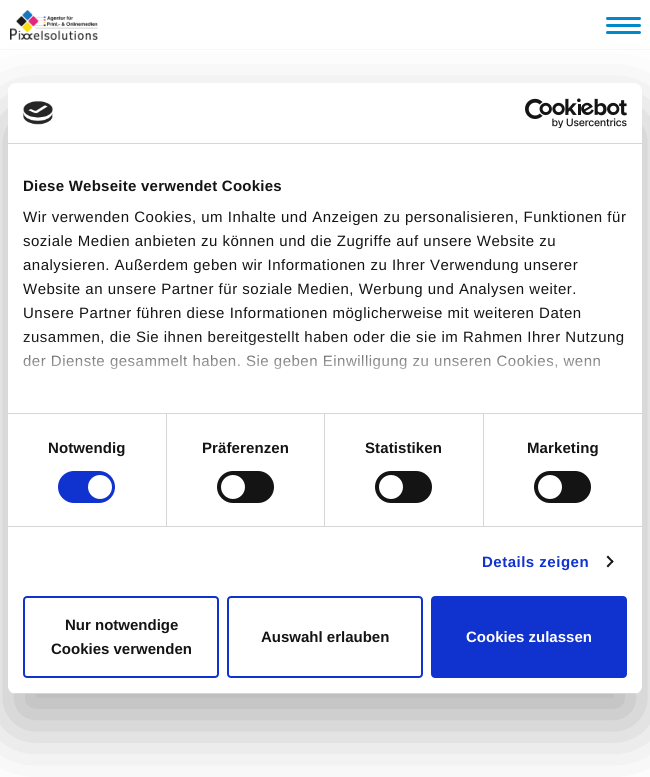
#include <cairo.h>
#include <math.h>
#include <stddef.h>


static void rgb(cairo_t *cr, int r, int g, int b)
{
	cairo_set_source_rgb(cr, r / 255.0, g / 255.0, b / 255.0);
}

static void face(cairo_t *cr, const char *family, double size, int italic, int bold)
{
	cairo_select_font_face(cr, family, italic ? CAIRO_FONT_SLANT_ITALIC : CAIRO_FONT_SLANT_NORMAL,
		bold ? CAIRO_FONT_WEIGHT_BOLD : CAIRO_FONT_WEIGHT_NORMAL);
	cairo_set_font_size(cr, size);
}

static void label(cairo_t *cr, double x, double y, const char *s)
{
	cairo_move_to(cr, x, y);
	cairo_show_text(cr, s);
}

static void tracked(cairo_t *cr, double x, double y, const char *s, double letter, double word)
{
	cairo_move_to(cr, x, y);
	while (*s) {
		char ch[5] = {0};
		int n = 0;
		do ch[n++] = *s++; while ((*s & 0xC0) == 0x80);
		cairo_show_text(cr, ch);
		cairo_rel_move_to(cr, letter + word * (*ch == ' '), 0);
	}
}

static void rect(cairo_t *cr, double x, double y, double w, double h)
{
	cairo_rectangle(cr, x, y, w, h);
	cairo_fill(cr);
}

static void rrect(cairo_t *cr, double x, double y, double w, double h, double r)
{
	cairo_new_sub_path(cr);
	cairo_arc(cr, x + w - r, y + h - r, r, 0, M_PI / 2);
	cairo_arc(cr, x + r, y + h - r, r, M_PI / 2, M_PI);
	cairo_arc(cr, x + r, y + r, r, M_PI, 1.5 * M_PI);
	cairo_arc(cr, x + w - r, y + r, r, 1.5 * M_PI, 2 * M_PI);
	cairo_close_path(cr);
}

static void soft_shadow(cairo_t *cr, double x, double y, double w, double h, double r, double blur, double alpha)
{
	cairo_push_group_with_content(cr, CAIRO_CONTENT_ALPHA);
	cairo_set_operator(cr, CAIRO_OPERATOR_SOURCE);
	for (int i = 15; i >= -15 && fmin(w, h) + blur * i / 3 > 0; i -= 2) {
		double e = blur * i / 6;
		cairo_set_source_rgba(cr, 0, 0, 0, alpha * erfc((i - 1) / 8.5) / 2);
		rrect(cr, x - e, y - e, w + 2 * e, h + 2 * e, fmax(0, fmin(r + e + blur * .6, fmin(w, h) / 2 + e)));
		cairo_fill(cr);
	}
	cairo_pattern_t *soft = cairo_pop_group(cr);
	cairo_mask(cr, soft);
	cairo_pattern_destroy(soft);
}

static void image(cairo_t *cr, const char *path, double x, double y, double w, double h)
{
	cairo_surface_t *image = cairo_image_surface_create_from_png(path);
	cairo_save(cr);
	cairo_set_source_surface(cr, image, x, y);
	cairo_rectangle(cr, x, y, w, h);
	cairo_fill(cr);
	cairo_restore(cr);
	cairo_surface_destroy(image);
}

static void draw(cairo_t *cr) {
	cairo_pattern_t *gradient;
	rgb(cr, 255, 255, 255);
	cairo_paint(cr);
	rgb(cr, 247, 248, 250);
	rect(cr, 0, 49, 650, 1);
	image(cr, "image0.png", 10, 10, 88, 30);
	rgb(cr, 0, 136, 204);
	rrect(cr, 606, 24, 35, 3, 1.5);
	cairo_fill(cr);
	rrect(cr, 606, 17, 35, 3, 1.5);
	cairo_fill(cr);
	rrect(cr, 606, 31, 35, 3, 1.5);
	cairo_fill(cr);
	rgb(cr, 0, 0, 0);
	soft_shadow(cr, 8, 115, 634, 611, 8, 34, 0.3);
	rgb(cr, 255, 255, 255);
	rrect(cr, 8, 83, 634, 611, 8);
	cairo_fill(cr);
	rgb(cr, 214, 214, 214);
	rect(cr, 8, 143, 634, 1);
	image(cr, "image1.png", 23, 101, 30, 24);
	image(cr, "image2.png", 525, 98, 102, 30);
	rect(cr, 8, 413, 634, 1);
	face(cr, "Liberation Sans", 15, 0, 1);
	rgb(cr, 20, 20, 20);
	tracked(cr, 23, 191, "Diese Webseite verwendet Cookies", 0.25, 0);
	face(cr, "Liberation Sans", 15, 0, 0);
	tracked(cr, 23, 222, "Wir verwenden Cookies, um Inhalte und Anzeigen zu personalisieren, Funktionen für", 0.5, 0);
	tracked(cr, 23, 246, "soziale Medien anbieten zu können und die Zugriffe auf unsere Website zu", 0.5, 0);
	tracked(cr, 23, 270, "analysieren. Außerdem geben wir Informationen zu Ihrer Verwendung unserer", 0.5, 0);
	tracked(cr, 23, 294, "Website an unsere Partner für soziale Medien, Werbung und Analysen weiter.", 0.5, 0);
	tracked(cr, 23, 318, "Unsere Partner führen diese Informationen möglicherweise mit weiteren Daten", 0.5, 0);
	tracked(cr, 23, 342, "zusammen, die Sie ihnen bereitgestellt haben oder die sie im Rahmen Ihrer Nutzung", 0.5, 0);
	tracked(cr, 23, 366, "der Dienste gesammelt haben. Sie geben Einwilligung zu unseren Cookies, wenn", 0.5, 0);
	gradient = cairo_pattern_create_linear(319, 413, 319, 338);
	cairo_pattern_add_color_stop_rgba(gradient, 0, 1, 1, 1, 1);
	cairo_pattern_add_color_stop_rgba(gradient, 0.5, 1, 1, 1, 0.8);
	cairo_pattern_add_color_stop_rgba(gradient, 1, 1, 1, 1, 0);
	cairo_set_source(cr, gradient);
	cairo_pattern_destroy(gradient);
	rect(cr, 23, 339, 600, 31);
	rgb(cr, 214, 214, 214);
	rect(cr, 8, 526, 634, 1);
	rect(cr, 166, 414, 1, 112);
	face(cr, "Liberation Sans", 15, 0, 1);
	rgb(cr, 20, 20, 20);
	tracked(cr, 48, 453, "Notwendig", 0.1, 0);
	rgb(cr, 16, 50, 207);
	rrect(cr, 58, 471, 57, 32, 16);
	cairo_fill(cr);
	rgb(cr, 255, 255, 255);
	cairo_arc(cr, 100, 487, 12, 0, 2 * M_PI);
	cairo_fill(cr);
	rgb(cr, 214, 214, 214);
	rect(cr, 324, 414, 1, 112);
	rgb(cr, 20, 20, 20);
	tracked(cr, 202, 453, "Präferenzen", 0.1, 0);
	rrect(cr, 217, 471, 57, 32, 16);
	cairo_fill(cr);
	rgb(cr, 255, 255, 255);
	cairo_arc(cr, 233, 487, 12, 0, 2 * M_PI);
	cairo_fill(cr);
	rgb(cr, 214, 214, 214);
	rect(cr, 483, 414, 1, 112);
	rgb(cr, 20, 20, 20);
	tracked(cr, 365, 453, "Statistiken", 0.1, 0);
	rrect(cr, 375, 471, 57, 32, 16);
	cairo_fill(cr);
	rgb(cr, 255, 255, 255);
	cairo_arc(cr, 391, 487, 12, 0, 2 * M_PI);
	cairo_fill(cr);
	rgb(cr, 20, 20, 20);
	tracked(cr, 527, 453, "Marketing", 0.1, 0);
	rrect(cr, 534, 471, 57, 32, 16);
	cairo_fill(cr);
	rgb(cr, 255, 255, 255);
	cairo_arc(cr, 550, 487, 12, 0, 2 * M_PI);
	cairo_fill(cr);
	rgb(cr, 16, 50, 207);
	tracked(cr, 482, 567, "Details zeigen", 0.5, 0);
	rgb(cr, 20, 20, 20);
	cairo_new_path(cr);
	cairo_move_to(cr, 608, 555.5);
	cairo_line_to(cr, 613.5, 561.5);
	cairo_line_to(cr, 612.5, 563);
	cairo_line_to(cr, 606.5, 557);
	cairo_close_path(cr);
	cairo_fill(cr);
	cairo_new_path(cr);
	cairo_move_to(cr, 612.5, 560);
	cairo_line_to(cr, 613.5, 561.5);
	cairo_line_to(cr, 608, 567.5);
	cairo_line_to(cr, 606.5, 566);
	cairo_close_path(cr);
	cairo_fill(cr);
	cairo_save(cr);
	rrect(cr, 8, 83, 634, 611, 8);
	cairo_clip(cr);
	rgb(cr, 214, 214, 214);
	rect(cr, 8, 693, 634, 1);
	cairo_restore(cr);
	rrect(cr, 24, 597, 194, 80, 3);
	rgb(cr, 16, 50, 207);
	cairo_stroke(cr);
	rgb(cr, 20, 20, 20);
	label(cr, 65, 630, "Nur notwendige");
	label(cr, 51, 654, "Cookies verwenden");
	rrect(cr, 228, 597, 194, 80, 3);
	rgb(cr, 16, 50, 207);
	cairo_stroke(cr);
	rgb(cr, 20, 20, 20);
	label(cr, 261, 642, "Auswahl erlauben");
	rgb(cr, 16, 50, 207);
	rrect(cr, 432, 597, 194, 80, 3);
	cairo_fill_preserve(cr);
	cairo_stroke(cr);
	rgb(cr, 255, 255, 255);
	label(cr, 466, 642, "Cookies zulassen");
}

int main(void) {
	cairo_surface_t *surface = cairo_image_surface_create(CAIRO_FORMAT_RGB24, 650, 777);
	cairo_t *cr = cairo_create(surface);
	cairo_font_options_t *options = cairo_font_options_create();
	cairo_font_options_set_hint_metrics(options, CAIRO_HINT_METRICS_OFF);
	cairo_font_options_set_hint_style(options, CAIRO_HINT_STYLE_NONE);
	cairo_set_font_options(cr, options);
	cairo_set_miter_limit(cr, 4);
	draw(cr);
	cairo_surface_write_to_png(surface, "render.png");
	cairo_font_options_destroy(options);
	cairo_destroy(cr);
	cairo_surface_destroy(surface);
	return 0;
}
